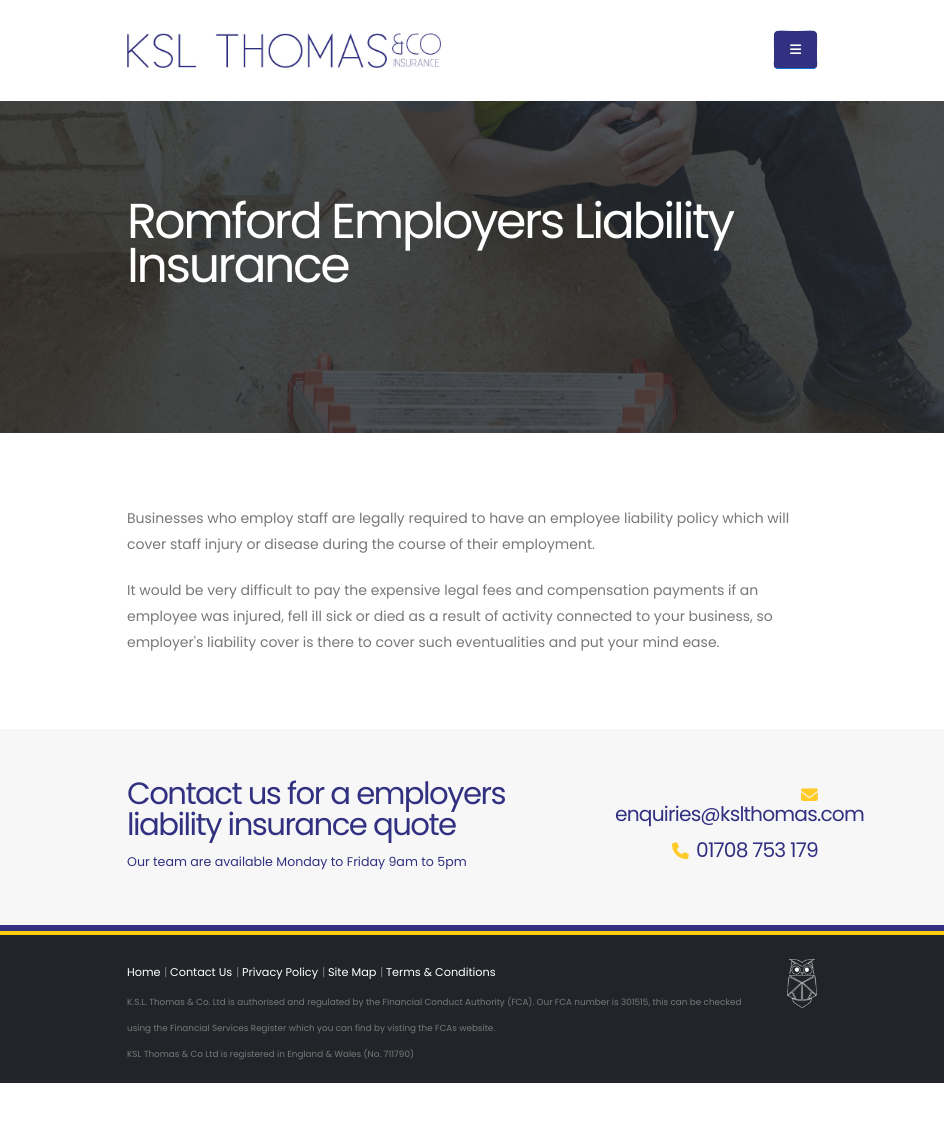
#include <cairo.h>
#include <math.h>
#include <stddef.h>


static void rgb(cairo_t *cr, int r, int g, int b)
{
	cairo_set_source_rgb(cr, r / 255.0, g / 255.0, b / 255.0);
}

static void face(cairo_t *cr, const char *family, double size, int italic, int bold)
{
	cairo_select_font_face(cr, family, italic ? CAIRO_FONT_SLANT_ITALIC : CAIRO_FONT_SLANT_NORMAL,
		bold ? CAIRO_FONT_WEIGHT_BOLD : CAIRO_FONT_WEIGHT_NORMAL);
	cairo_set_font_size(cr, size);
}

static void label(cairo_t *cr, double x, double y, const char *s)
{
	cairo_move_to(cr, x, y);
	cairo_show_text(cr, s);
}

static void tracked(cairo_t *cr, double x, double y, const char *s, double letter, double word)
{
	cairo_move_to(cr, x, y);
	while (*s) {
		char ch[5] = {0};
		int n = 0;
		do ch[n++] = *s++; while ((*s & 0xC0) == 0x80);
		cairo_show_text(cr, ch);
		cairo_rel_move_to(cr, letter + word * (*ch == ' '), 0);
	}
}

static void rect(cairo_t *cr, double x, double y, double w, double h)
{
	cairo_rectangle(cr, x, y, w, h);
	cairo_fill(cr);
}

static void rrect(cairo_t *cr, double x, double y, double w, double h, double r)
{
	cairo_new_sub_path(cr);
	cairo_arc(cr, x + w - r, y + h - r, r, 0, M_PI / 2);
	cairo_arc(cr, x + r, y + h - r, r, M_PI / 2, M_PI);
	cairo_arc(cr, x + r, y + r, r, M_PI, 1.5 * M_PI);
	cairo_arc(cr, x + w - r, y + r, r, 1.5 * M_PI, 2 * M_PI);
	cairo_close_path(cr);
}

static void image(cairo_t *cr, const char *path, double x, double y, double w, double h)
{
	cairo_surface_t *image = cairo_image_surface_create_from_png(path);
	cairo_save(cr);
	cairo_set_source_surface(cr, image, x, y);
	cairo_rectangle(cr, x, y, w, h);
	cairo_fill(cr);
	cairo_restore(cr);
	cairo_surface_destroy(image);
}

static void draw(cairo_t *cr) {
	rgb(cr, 255, 255, 255);
	cairo_paint(cr);
	image(cr, "image0.png", 127, 33, 314, 35);
	rgb(cr, 49, 48, 129);
	rrect(cr, 774, 31, 43, 38, 4);
	cairo_fill(cr);
	cairo_new_path(cr);
	cairo_move_to(cr, 815.5, 67.5);
	cairo_curve_to(cr, 815, 68, 814, 68.5, 813, 68.5);
	cairo_line_to(cr, 778, 68.5);
	cairo_curve_to(cr, 777, 68.5, 776, 68, 775.5, 67.5);
	rgb(cr, 17, 110, 204);
	cairo_set_line_width(cr, 1);
	cairo_stroke(cr);
	cairo_new_path(cr);
	cairo_move_to(cr, 775.5, 67.5);
	cairo_curve_to(cr, 773.5, 65.5, 774.5, 62, 774.5, 60);
	cairo_line_to(cr, 774.5, 50);
	cairo_curve_to(cr, 774.5, 27, 771.5, 31.5, 795.5, 31.5);
	cairo_curve_to(cr, 819.5, 31.5, 816.5, 27, 816.5, 50);
	cairo_line_to(cr, 816.5, 60);
	cairo_curve_to(cr, 816.5, 62, 817.5, 65.5, 815.5, 67.5);
	rgb(cr, 49, 48, 129);
	cairo_stroke(cr);
	image(cr, "image1.png", 790, 44, 12, 10);
	image(cr, "image2.png", 0, 101, 944, 332);
	face(cr, "Poppins", 49, 0, 0);
	rgb(cr, 255, 255, 255);
	tracked(cr, 127, 238, "Romford Employers Liability", -2.45, 0);
	tracked(cr, 127, 282, "Insurance", -2.45, 0);
	face(cr, "Poppins", 14, 0, 0);
	rgb(cr, 119, 119, 119);
	label(cr, 127, 523, "Businesses who employ staff are legally required to have an employee liability policy which will");
	label(cr, 127, 549, "cover staff injury or disease during the course of their employment.");
	label(cr, 127, 595, "It would be very difficult to pay the expensive legal fees and compensation payments if an");
	label(cr, 127, 621, "employee was injured, fell ill sick or died as a result of activity connected to your business, so");
	label(cr, 127, 647, "employer's liability cover is there to cover such eventualities and put your mind ease.");
	rgb(cr, 247, 247, 247);
	rect(cr, 0, 729, 944, 196);
	face(cr, "Poppins", 30.75, 0, 0);
	rgb(cr, 49, 48, 129);
	tracked(cr, 127, 804, "Contact us for a employers", -1.55, 0);
	tracked(cr, 127, 835, "liability insurance quote", -1.55, 0);
	face(cr, "Poppins", 12.6, 0, 0);
	label(cr, 127, 866, "Our team are available Monday to Friday 9am to 5pm");
	image(cr, "image3.png", 801, 788, 17, 13);
	face(cr, "Poppins", 20.2, 0, 0);
	tracked(cr, 615, 821, "enquiries@kslthomas.com", -0.8, 0);
	image(cr, "image4.png", 672, 842, 17, 18);
	tracked(cr, 696, 857, "01708 753 179", -0.8, 0);
	rect(cr, 0, 925, 944, 6);
	rgb(cr, 33, 37, 41);
	rect(cr, 0, 935, 944, 148);
	rgb(cr, 254, 204, 13);
	rect(cr, 0, 931, 944, 4);
	face(cr, "Poppins", 11.25, 0, 0);
	rgb(cr, 255, 255, 255);
	label(cr, 127, 976, "Home");
	rgb(cr, 119, 119, 119);
	label(cr, 164, 976, "|");
	rgb(cr, 255, 255, 255);
	label(cr, 170, 976, "Contact Us");
	rgb(cr, 119, 119, 119);
	label(cr, 236, 976, "|");
	rgb(cr, 255, 255, 255);
	label(cr, 242, 976, "Privacy Policy");
	rgb(cr, 119, 119, 119);
	label(cr, 322, 976, "|");
	rgb(cr, 255, 255, 255);
	label(cr, 328, 976, "Site Map");
	rgb(cr, 119, 119, 119);
	label(cr, 380, 976, "|");
	rgb(cr, 255, 255, 255);
	label(cr, 386, 976, "Terms & Conditions");
	face(cr, "Poppins", 8.82, 0, 0);
	rgb(cr, 119, 119, 119);
	label(cr, 127, 1005, "K.S.L. Thomas & Co. Ltd is authorised and regulated by the Financial Conduct Authority (FCA). Our FCA number is 301515, this can be checked");
	label(cr, 127, 1031, "using the Financial Services Register which you can find by visting the FCAs website.");
	label(cr, 127, 1057, "KSL Thomas & Co Ltd is registered in England & Wales (No. 711790)");
	image(cr, "image5.png", 787, 959, 30, 49);
}

int main(void) {
	cairo_surface_t *surface = cairo_image_surface_create(CAIRO_FORMAT_RGB24, 944, 1133);
	cairo_t *cr = cairo_create(surface);
	cairo_font_options_t *options = cairo_font_options_create();
	cairo_font_options_set_hint_metrics(options, CAIRO_HINT_METRICS_OFF);
	cairo_font_options_set_hint_style(options, CAIRO_HINT_STYLE_NONE);
	cairo_set_font_options(cr, options);
	cairo_set_miter_limit(cr, 4);
	draw(cr);
	cairo_surface_write_to_png(surface, "render.png");
	cairo_font_options_destroy(options);
	cairo_destroy(cr);
	cairo_surface_destroy(surface);
	return 0;
}
